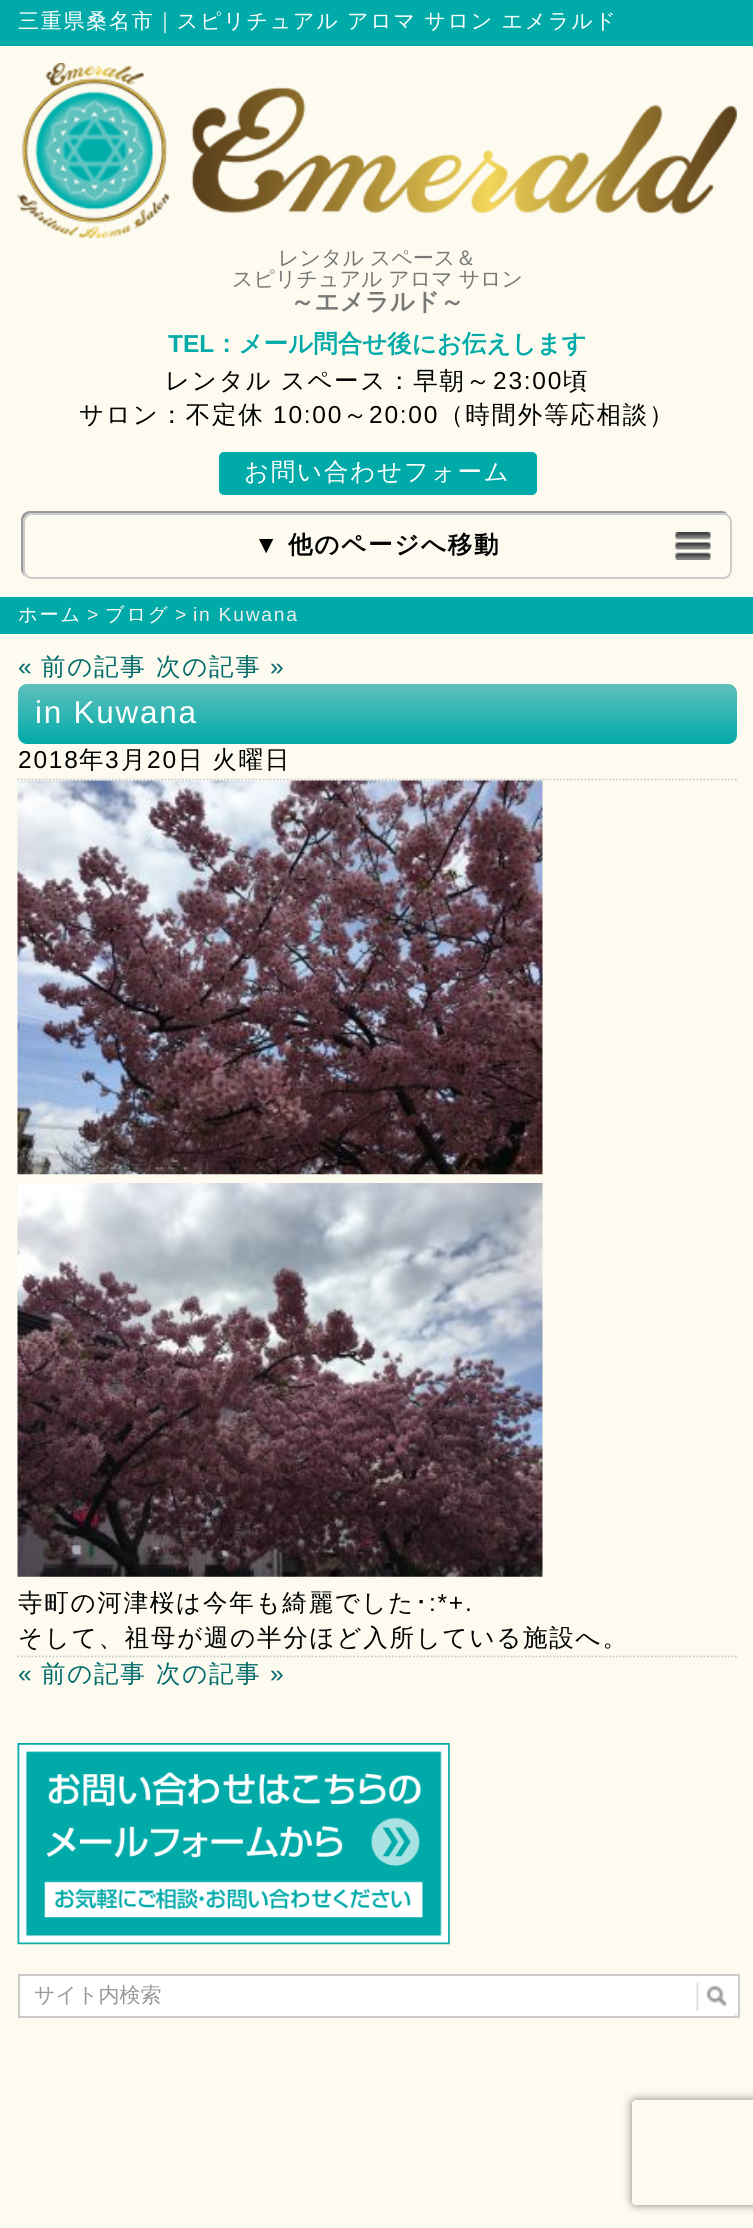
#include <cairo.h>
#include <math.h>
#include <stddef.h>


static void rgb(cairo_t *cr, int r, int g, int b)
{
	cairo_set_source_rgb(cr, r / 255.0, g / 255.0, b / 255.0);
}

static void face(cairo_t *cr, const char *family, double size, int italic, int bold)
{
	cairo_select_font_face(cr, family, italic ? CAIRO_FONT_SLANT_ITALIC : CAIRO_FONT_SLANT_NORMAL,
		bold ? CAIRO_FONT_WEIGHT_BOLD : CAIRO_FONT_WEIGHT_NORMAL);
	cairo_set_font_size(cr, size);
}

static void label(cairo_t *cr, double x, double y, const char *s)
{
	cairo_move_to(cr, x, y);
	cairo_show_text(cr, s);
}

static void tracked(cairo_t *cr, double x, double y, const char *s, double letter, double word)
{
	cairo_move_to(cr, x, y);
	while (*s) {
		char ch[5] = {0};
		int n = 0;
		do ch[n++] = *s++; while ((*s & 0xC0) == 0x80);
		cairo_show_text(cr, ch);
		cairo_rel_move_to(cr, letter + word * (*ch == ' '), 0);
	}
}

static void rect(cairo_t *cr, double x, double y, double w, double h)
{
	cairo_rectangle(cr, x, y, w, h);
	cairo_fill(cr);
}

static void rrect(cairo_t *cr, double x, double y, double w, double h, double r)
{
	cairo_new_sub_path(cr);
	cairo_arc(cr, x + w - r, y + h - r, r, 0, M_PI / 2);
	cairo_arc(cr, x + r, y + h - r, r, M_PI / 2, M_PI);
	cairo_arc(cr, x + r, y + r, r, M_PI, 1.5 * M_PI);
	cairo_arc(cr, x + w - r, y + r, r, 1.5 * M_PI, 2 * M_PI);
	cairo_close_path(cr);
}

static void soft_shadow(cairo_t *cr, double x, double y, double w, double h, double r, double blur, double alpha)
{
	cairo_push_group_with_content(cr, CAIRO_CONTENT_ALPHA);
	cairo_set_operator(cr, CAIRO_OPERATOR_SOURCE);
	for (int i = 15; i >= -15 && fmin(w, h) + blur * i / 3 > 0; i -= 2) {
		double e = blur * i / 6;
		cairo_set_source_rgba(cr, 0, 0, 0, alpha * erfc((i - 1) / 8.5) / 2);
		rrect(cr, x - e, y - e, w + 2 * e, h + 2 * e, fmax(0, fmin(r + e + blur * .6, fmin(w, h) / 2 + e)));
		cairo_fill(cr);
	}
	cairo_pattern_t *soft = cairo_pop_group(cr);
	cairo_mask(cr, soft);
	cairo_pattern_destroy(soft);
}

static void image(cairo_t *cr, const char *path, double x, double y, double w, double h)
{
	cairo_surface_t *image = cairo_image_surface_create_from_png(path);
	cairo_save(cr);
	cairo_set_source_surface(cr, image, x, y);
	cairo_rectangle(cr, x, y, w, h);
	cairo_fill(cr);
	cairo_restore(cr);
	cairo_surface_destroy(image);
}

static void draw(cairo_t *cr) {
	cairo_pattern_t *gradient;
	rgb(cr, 253, 251, 240);
	cairo_paint(cr);
	rgb(cr, 0, 170, 169);
	rect(cr, 0, 0, 753, 46);
	face(cr, "WenQuanYi Zen Hei Medium", 21, 0, 0);
	rgb(cr, 255, 255, 255);
	tracked(cr, 18, 28, "三重県桑名市｜スピリチュアル アロマ サロン エメラルド", 1.75, -0.5);
	image(cr, "image0.png", 17, 63, 720, 175);
	rgb(cr, 119, 119, 119);
	tracked(cr, 278, 265, "レンタル スペース＆", 0, -0.5);
	tracked(cr, 232, 286, "スピリチュアル アロマ サロン", 0, -0.5);
	face(cr, "WenQuanYi Zen Hei", 24.5, 0, 1);
	label(cr, 290, 310, "～エメラルド～");
	face(cr, "Liberation Sans", 24.5, 0, 1);
	rgb(cr, 0, 170, 169);
	label(cr, 168, 352, "TEL");
	face(cr, "WenQuanYi Zen Hei", 24.5, 0, 1);
	label(cr, 214, 352, "：メール問合せ後にお伝えします");
	face(cr, "WenQuanYi Zen Hei Medium", 24.5, 0, 0);
	rgb(cr, 0, 0, 0);
	tracked(cr, 165, 389, "レンタル スペース：早朝～", 1.75, -1);
	face(cr, "Liberation Sans", 24.5, 0, 0);
	tracked(cr, 493, 389, "23:00", 1.75, 0);
	face(cr, "WenQuanYi Zen Hei Medium", 24.5, 0, 0);
	tracked(cr, 563, 389, "頃", 1.75, 0);
	tracked(cr, 79, 423, "サロン：不定休", 1.75, 0);
	face(cr, "Liberation Sans", 24.5, 0, 0);
	tracked(cr, 273, 423, "10:00", 1.75, 0);
	face(cr, "WenQuanYi Zen Hei Medium", 24.5, 0, 0);
	tracked(cr, 343, 423, "～", 1.75, 0);
	face(cr, "Liberation Sans", 24.5, 0, 0);
	tracked(cr, 369, 423, "20:00", 1.75, 0);
	face(cr, "WenQuanYi Zen Hei Medium", 24.5, 0, 0);
	tracked(cr, 439, 423, "（時間外等応相談）", 1.75, 0);
	rgb(cr, 0, 170, 169);
	rrect(cr, 219, 452, 318, 43, 5);
	cairo_fill(cr);
	rgb(cr, 255, 255, 255);
	tracked(cr, 244, 480, "お問い合わせフォーム", 1.75, 0);
	rgb(cr, 153, 153, 153);
	cairo_new_path(cr);
	cairo_move_to(cr, 30, 511);
	cairo_curve_to(cr, 25, 511, 21, 515, 21, 520);
	cairo_line_to(cr, 21, 569);
	cairo_curve_to(cr, 21, 572, 23, 575, 25, 577);
	cairo_curve_to(cr, 24, 575, 23, 573, 23, 570);
	cairo_line_to(cr, 23, 522);
	cairo_curve_to(cr, 23, 517, 27, 513, 32, 513);
	cairo_line_to(cr, 723, 513);
	cairo_curve_to(cr, 725, 513, 727, 513, 728, 515);
	cairo_curve_to(cr, 727, 512, 724, 511, 721, 511);
	cairo_close_path(cr);
	cairo_fill(cr);
	image(cr, "image1.png", 675, 532, 36, 28);
	rrect(cr, 24, 514, 707, 64, 8);
	rgb(cr, 204, 204, 204);
	cairo_stroke(cr);
	face(cr, "Liberation Sans", 24.5, 0, 1);
	rgb(cr, 0, 0, 0);
	tracked(cr, 254, 553, "▼", 1.75, 0);
	face(cr, "WenQuanYi Zen Hei", 24.5, 0, 1);
	tracked(cr, 288, 553, "他のページへ移動", 1.75, 0);
	rgb(cr, 0, 170, 169);
	rect(cr, 0, 597, 753, 37);
	face(cr, "WenQuanYi Zen Hei Medium", 19.25, 0, 0);
	rgb(cr, 255, 255, 255);
	tracked(cr, 18, 621, "ホーム", 1.75, 0);
	face(cr, "Liberation Sans", 19.25, 0, 0);
	rgb(cr, 238, 238, 238);
	tracked(cr, 87, 621, ">", 1.75, 0);
	face(cr, "WenQuanYi Zen Hei Medium", 19.25, 0, 0);
	rgb(cr, 255, 255, 255);
	tracked(cr, 105, 621, "ブログ", 1.75, 0);
	face(cr, "Liberation Sans", 19.25, 0, 0);
	rgb(cr, 238, 238, 238);
	tracked(cr, 175, 621, ">", 1.75, 0);
	tracked(cr, 193, 621, "in Kuwana", 1.75, 0);
	face(cr, "Liberation Sans", 24.5, 0, 0);
	rgb(cr, 0, 106, 106);
	tracked(cr, 18, 675, "«", 1.75, 0);
	face(cr, "WenQuanYi Zen Hei Medium", 24.5, 0, 0);
	tracked(cr, 41, 675, "前の記事", 1.75, 0);
	tracked(cr, 156, 675, "次の記事", 1.75, 0);
	face(cr, "Liberation Sans", 24.5, 0, 0);
	tracked(cr, 270, 675, "»", 1.75, 0);
	gradient = cairo_pattern_create_linear(377, 684, 377, 744);
	cairo_pattern_add_color_stop_rgba(gradient, 0, 0.376, 0.753, 0.737, 1);
	cairo_pattern_add_color_stop_rgba(gradient, 1, 0, 0.667, 0.663, 1);
	cairo_set_source(cr, gradient);
	cairo_pattern_destroy(gradient);
	rrect(cr, 18, 684, 719, 60, 9);
	cairo_fill(cr);
	face(cr, "Liberation Sans", 31.5, 0, 0);
	rgb(cr, 255, 255, 255);
	tracked(cr, 35, 723, "in Kuwana", 1.75, 0);
	cairo_new_path(cr);
	cairo_move_to(cr, 17.5, 779.5);
	cairo_line_to(cr, 737, 779.5);
	rgb(cr, 204, 204, 204);
	cairo_set_line_width(cr, 1.8);
	cairo_set_dash(cr, (double[]){1.75, 1.75}, 2, 0);
	cairo_stroke(cr);
	face(cr, "Liberation Sans", 24.5, 0, 0);
	rgb(cr, 0, 0, 0);
	tracked(cr, 18, 768, "2018", 1.75, 0);
	face(cr, "WenQuanYi Zen Hei Medium", 24.5, 0, 0);
	tracked(cr, 79, 768, "年", 1.75, 0);
	face(cr, "Liberation Sans", 24.5, 0, 0);
	tracked(cr, 105, 768, "3", 1.75, 0);
	face(cr, "WenQuanYi Zen Hei Medium", 24.5, 0, 0);
	tracked(cr, 121, 768, "月", 1.75, 0);
	face(cr, "Liberation Sans", 24.5, 0, 0);
	tracked(cr, 147, 768, "20", 1.75, 0);
	face(cr, "WenQuanYi Zen Hei Medium", 24.5, 0, 0);
	tracked(cr, 178, 768, "日 火曜日", 1.75, -1);
	image(cr, "image2.png", 17, 780, 526, 395);
	image(cr, "image3.png", 17, 1183, 526, 394);
	tracked(cr, 18, 1611, "寺町の河津桜は今年も綺麗でした", 1.75, 0);
	face(cr, "IPAPGothic", 24.5, 0, 0);
	tracked(cr, 415, 1611, "･", 1.75, 0);
	face(cr, "Liberation Sans", 24.5, 0, 0);
	tracked(cr, 429, 1611, ":*+.", 1.75, 0);
	face(cr, "WenQuanYi Zen Hei Medium", 24.5, 0, 0);
	tracked(cr, 18, 1646, "そして、祖母が週の半分ほど入所している施設へ。", 1.75, 0);
	cairo_new_path(cr);
	cairo_move_to(cr, 17.5, 1656.5);
	cairo_line_to(cr, 737, 1656.5);
	rgb(cr, 204, 204, 204);
	cairo_stroke(cr);
	face(cr, "Liberation Sans", 24.5, 0, 0);
	rgb(cr, 0, 106, 106);
	tracked(cr, 18, 1682, "«", 1.75, 0);
	face(cr, "WenQuanYi Zen Hei Medium", 24.5, 0, 0);
	tracked(cr, 41, 1682, "前の記事", 1.75, 0);
	tracked(cr, 156, 1682, "次の記事", 1.75, 0);
	face(cr, "Liberation Sans", 24.5, 0, 0);
	tracked(cr, 270, 1682, "»", 1.75, 0);
	image(cr, "image4.png", 17, 1743, 433, 202);
	rgb(cr, 255, 255, 255);
	cairo_rectangle(cr, 19, 1975, 720, 42);
	cairo_fill_preserve(cr);
	rgb(cr, 204, 204, 204);
	cairo_set_line_width(cr, 2);
	cairo_set_dash(cr, NULL, 0, 0);
	cairo_stroke(cr);
	face(cr, "WenQuanYi Zen Hei Medium", 21, 0, 0);
	rgb(cr, 153, 153, 153);
	label(cr, 34, 2002, "サイト内検索");
	image(cr, "image5.png", 696, 1982, 41, 34);
	cairo_save(cr);
	cairo_set_fill_rule(cr, CAIRO_FILL_RULE_EVEN_ODD);
	cairo_new_path(cr);
	cairo_move_to(cr, 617, 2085);
	cairo_line_to(cr, 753, 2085);
	cairo_line_to(cr, 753, 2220);
	cairo_line_to(cr, 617, 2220);
	cairo_close_path(cr);
	cairo_move_to(cr, 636, 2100);
	cairo_line_to(cr, 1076, 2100);
	cairo_curve_to(cr, 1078, 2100, 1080, 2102, 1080, 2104);
	cairo_line_to(cr, 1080, 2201);
	cairo_curve_to(cr, 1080, 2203, 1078, 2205, 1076, 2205);
	cairo_line_to(cr, 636, 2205);
	cairo_curve_to(cr, 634, 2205, 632, 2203, 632, 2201);
	cairo_line_to(cr, 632, 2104);
	cairo_curve_to(cr, 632, 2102, 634, 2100, 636, 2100);
	cairo_close_path(cr);
	cairo_clip(cr);
	rgb(cr, 128, 128, 128);
	soft_shadow(cr, 632, 2100, 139, 105, 4, 4.5, 1);
	cairo_restore(cr);
}

int main(void) {
	cairo_surface_t *surface = cairo_image_surface_create(CAIRO_FORMAT_RGB24, 753, 2228);
	cairo_t *cr = cairo_create(surface);
	cairo_font_options_t *options = cairo_font_options_create();
	cairo_font_options_set_hint_metrics(options, CAIRO_HINT_METRICS_OFF);
	cairo_font_options_set_hint_style(options, CAIRO_HINT_STYLE_NONE);
	cairo_set_font_options(cr, options);
	cairo_set_miter_limit(cr, 4);
	draw(cr);
	cairo_surface_write_to_png(surface, "render.png");
	cairo_font_options_destroy(options);
	cairo_destroy(cr);
	cairo_surface_destroy(surface);
	return 0;
}
